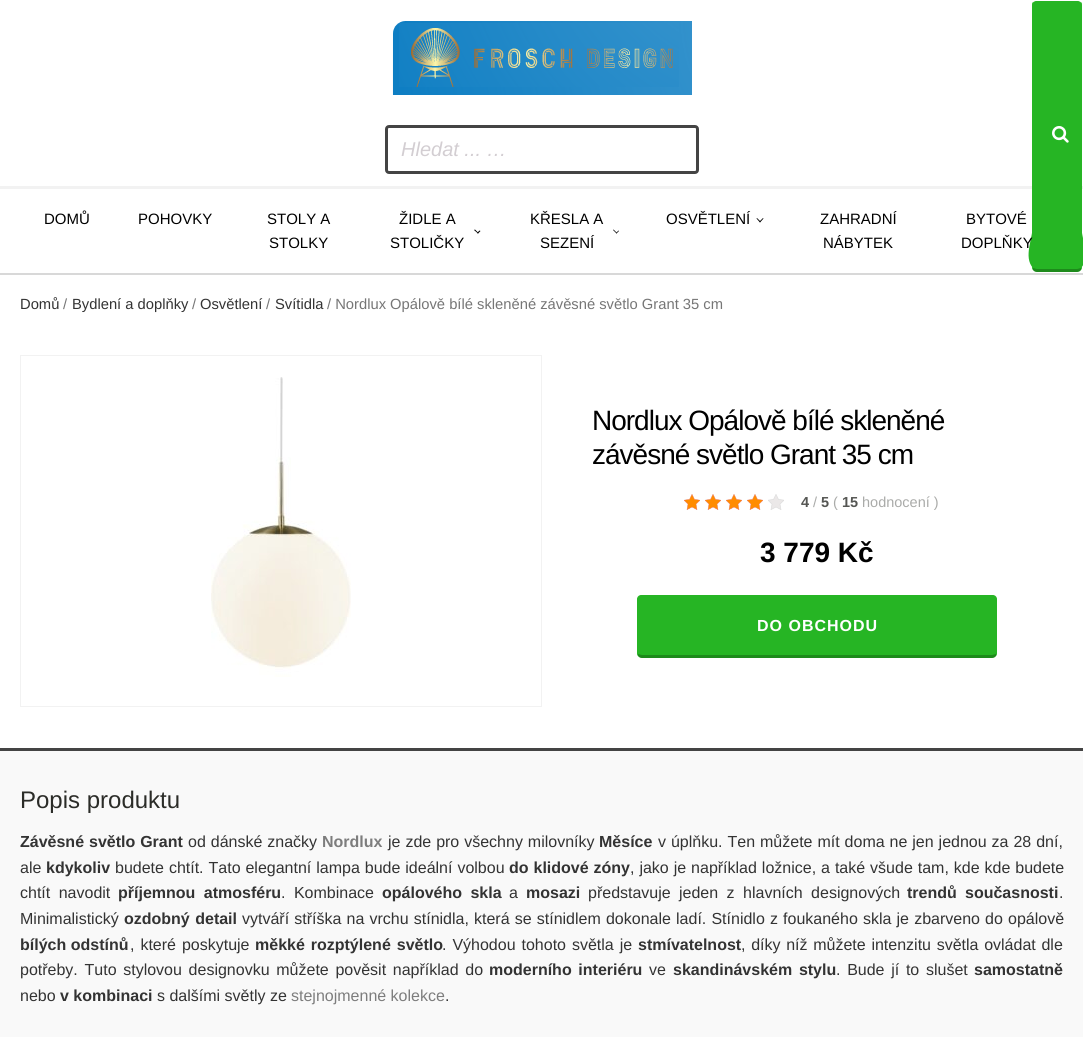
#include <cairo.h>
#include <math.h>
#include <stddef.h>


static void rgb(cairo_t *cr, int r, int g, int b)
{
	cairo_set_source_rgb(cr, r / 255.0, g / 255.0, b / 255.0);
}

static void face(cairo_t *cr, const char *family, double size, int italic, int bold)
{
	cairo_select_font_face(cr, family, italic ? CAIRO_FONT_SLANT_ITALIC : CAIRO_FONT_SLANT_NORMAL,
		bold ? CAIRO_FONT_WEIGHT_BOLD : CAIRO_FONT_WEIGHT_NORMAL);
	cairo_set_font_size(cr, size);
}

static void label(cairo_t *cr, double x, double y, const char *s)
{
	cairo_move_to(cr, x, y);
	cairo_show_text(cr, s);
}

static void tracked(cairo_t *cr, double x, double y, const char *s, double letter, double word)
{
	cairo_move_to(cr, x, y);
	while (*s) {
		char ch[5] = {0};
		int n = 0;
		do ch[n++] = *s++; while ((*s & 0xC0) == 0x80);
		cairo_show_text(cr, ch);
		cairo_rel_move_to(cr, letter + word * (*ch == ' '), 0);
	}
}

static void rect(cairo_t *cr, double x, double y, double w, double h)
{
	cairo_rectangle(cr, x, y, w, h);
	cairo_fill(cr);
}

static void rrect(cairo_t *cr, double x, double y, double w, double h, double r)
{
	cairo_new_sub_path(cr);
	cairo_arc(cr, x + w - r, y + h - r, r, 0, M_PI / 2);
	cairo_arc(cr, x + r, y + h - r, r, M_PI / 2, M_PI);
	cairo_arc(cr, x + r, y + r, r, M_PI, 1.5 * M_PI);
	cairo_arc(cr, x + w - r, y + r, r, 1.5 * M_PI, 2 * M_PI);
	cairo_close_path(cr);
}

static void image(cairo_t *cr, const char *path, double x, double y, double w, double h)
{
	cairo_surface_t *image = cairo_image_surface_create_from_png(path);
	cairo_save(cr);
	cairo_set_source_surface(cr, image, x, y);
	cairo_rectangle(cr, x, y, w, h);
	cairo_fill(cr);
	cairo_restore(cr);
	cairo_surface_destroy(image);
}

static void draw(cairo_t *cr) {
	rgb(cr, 255, 255, 255);
	cairo_paint(cr);
	image(cr, "image0.png", 392, 21, 300, 74);
	rrect(cr, 386.5, 126.5, 311, 46, 2.5);
	rgb(cr, 68, 68, 68);
	cairo_set_line_width(cr, 3);
	cairo_stroke(cr);
	face(cr, "Liberation Sans", 20, 1, 0);
	rgb(cr, 211, 206, 210);
	label(cr, 401, 156, "Hledat ... …");
	rgb(cr, 242, 242, 242);
	rect(cr, 0, 186, 1083, 3);
	rgb(cr, 38, 181, 36);
	rrect(cr, 1032, 1, 50, 271, 5);
	cairo_fill(cr);
	cairo_new_path(cr);
	cairo_move_to(cr, 1037, 1);
	cairo_curve_to(cr, 1036, 1, 1034, 2, 1033, 2);
	cairo_line_to(cr, 1034, 3);
	cairo_curve_to(cr, 1035, 2, 1036, 2, 1037, 2);
	cairo_line_to(cr, 1077, 2);
	cairo_curve_to(cr, 1078, 2, 1079, 2, 1080, 3);
	cairo_line_to(cr, 1081, 2);
	cairo_curve_to(cr, 1080, 2, 1078, 1, 1077, 1);
	cairo_close_path(cr);
	cairo_fill(cr);
	cairo_new_path(cr);
	cairo_move_to(cr, 1082, 267);
	cairo_line_to(cr, 1082, 6);
	cairo_curve_to(cr, 1082, 4, 1082, 3, 1081, 2);
	cairo_line_to(cr, 1080, 3);
	cairo_line_to(cr, 1081, 6);
	cairo_line_to(cr, 1081, 224);
	cairo_curve_to(cr, 1081, 238, 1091, 257, 1081, 268);
	cairo_line_to(cr, 1081, 270);
	cairo_close_path(cr);
	cairo_fill(cr);
	cairo_set_source_rgba(cr, 0, 0, 0, 0.24);
	cairo_new_path(cr);
	cairo_move_to(cr, 1037, 272);
	cairo_line_to(cr, 1077, 272);
	cairo_curve_to(cr, 1079, 272, 1080, 271, 1081, 270);
	cairo_line_to(cr, 1081, 268);
	cairo_curve_to(cr, 1080, 268, 1078, 269, 1077, 269);
	cairo_line_to(cr, 1037, 269);
	cairo_curve_to(cr, 1036, 269, 1034, 268, 1033, 268);
	cairo_line_to(cr, 1033, 270);
	cairo_curve_to(cr, 1034, 271, 1035, 272, 1037, 272);
	cairo_close_path(cr);
	cairo_fill(cr);
	rgb(cr, 38, 181, 36);
	cairo_new_path(cr);
	cairo_move_to(cr, 1032, 6);
	cairo_line_to(cr, 1032, 267);
	cairo_line_to(cr, 1033, 270);
	cairo_line_to(cr, 1033, 268);
	cairo_curve_to(cr, 1023, 257, 1033, 238, 1033, 224);
	cairo_line_to(cr, 1033, 6);
	cairo_line_to(cr, 1034, 3);
	cairo_line_to(cr, 1033, 2);
	cairo_curve_to(cr, 1032, 3, 1032, 4, 1032, 6);
	cairo_close_path(cr);
	cairo_fill(cr);
	image(cr, "image1.png", 1052, 126, 17, 17);
	rgb(cr, 216, 216, 216);
	rect(cr, 0, 273, 1083, 2);
	face(cr, "Liberation Sans", 15, 0, 0);
	rgb(cr, 0, 0, 0);
	label(cr, 44, 224, "DOMŮ");
	label(cr, 138, 224, "POHOVKY");
	label(cr, 267, 224, "STOLY A");
	label(cr, 269, 248, "STOLKY");
	label(cr, 399, 224, "ŽIDLE A");
	cairo_new_path(cr);
	cairo_move_to(cr, 480.5, 231);
	cairo_line_to(cr, 478, 233.5);
	cairo_line_to(cr, 477, 233);
	cairo_line_to(cr, 479.5, 230.5);
	cairo_close_path(cr);
	cairo_fill(cr);
	cairo_new_path(cr);
	cairo_move_to(cr, 478.5, 233);
	cairo_line_to(cr, 478, 233.5);
	cairo_line_to(cr, 474, 230);
	cairo_line_to(cr, 475, 229.5);
	cairo_close_path(cr);
	cairo_fill(cr);
	label(cr, 390, 248, "STOLIČKY");
	label(cr, 530, 224, "KŘESLA A");
	cairo_new_path(cr);
	cairo_move_to(cr, 619, 231);
	cairo_line_to(cr, 616.5, 233.5);
	cairo_line_to(cr, 616, 233);
	cairo_line_to(cr, 618.5, 230.5);
	cairo_close_path(cr);
	cairo_fill(cr);
	cairo_new_path(cr);
	cairo_move_to(cr, 617, 233);
	cairo_line_to(cr, 616.5, 233.5);
	cairo_line_to(cr, 613, 230);
	cairo_line_to(cr, 613.5, 229.5);
	cairo_close_path(cr);
	cairo_fill(cr);
	label(cr, 540, 248, "SEZENÍ");
	label(cr, 666, 224, "OSVĚTLENÍ");
	cairo_new_path(cr);
	cairo_move_to(cr, 763.5, 218.5);
	cairo_line_to(cr, 760, 222.5);
	cairo_line_to(cr, 759.5, 221.5);
	cairo_line_to(cr, 763, 218);
	cairo_close_path(cr);
	cairo_fill(cr);
	cairo_new_path(cr);
	cairo_move_to(cr, 760.5, 221.5);
	cairo_line_to(cr, 760, 222.5);
	cairo_line_to(cr, 756.5, 218.5);
	cairo_line_to(cr, 757, 218);
	cairo_close_path(cr);
	cairo_fill(cr);
	label(cr, 820, 224, "ZAHRADNÍ");
	label(cr, 823, 248, "NÁBYTEK");
	label(cr, 966, 224, "BYTOVÉ");
	label(cr, 961, 248, "DOPLŇKY");
	face(cr, "Liberation Sans", 14.75, 0, 0);
	rgb(cr, 51, 51, 51);
	label(cr, 20, 309, "Domů");
	rgb(cr, 118, 118, 118);
	label(cr, 63, 309, "/");
	rgb(cr, 51, 51, 51);
	label(cr, 72, 309, "Bydlení a doplňky");
	rgb(cr, 118, 118, 118);
	label(cr, 192, 309, "/");
	rgb(cr, 51, 51, 51);
	label(cr, 200, 309, "Osvětlení");
	rgb(cr, 118, 118, 118);
	label(cr, 266, 309, "/");
	rgb(cr, 51, 51, 51);
	label(cr, 275, 309, "Svítidla");
	rgb(cr, 118, 118, 118);
	label(cr, 327, 309, "/ Nordlux Opálově bílé skleněné závěsné světlo Grant 35 cm");
	cairo_rectangle(cr, 20.5, 355.5, 521, 351);
	rgb(cr, 242, 242, 242);
	cairo_set_line_width(cr, 1);
	cairo_stroke(cr);
	image(cr, "image2.png", 211, 377, 140, 300);
	face(cr, "Liberation Sans", 28, 0, 0);
	rgb(cr, 0, 0, 0);
	tracked(cr, 592, 430, "Nordlux Opálově bílé skleněné", -1, 0);
	tracked(cr, 592, 464, "závěsné světlo Grant 35 cm", -1, 0);
	image(cr, "image3.png", 684, 494, 16, 16);
	image(cr, "image3.png", 705, 494, 16, 16);
	image(cr, "image3.png", 726, 494, 16, 16);
	image(cr, "image3.png", 747, 494, 16, 16);
	image(cr, "image3.png", 768, 494, 16, 16);
	image(cr, "image4.png", 684, 494, 16, 16);
	image(cr, "image4.png", 705, 494, 16, 16);
	image(cr, "image4.png", 726, 494, 16, 16);
	image(cr, "image4.png", 747, 494, 16, 16);
	face(cr, "Liberation Sans", 14.5, 0, 1);
	rgb(cr, 85, 86, 83);
	label(cr, 801, 507, "4");
	face(cr, "Liberation Sans", 14.5, 0, 0);
	rgb(cr, 170, 171, 169);
	label(cr, 813, 507, "/");
	face(cr, "Liberation Sans", 14.5, 0, 1);
	rgb(cr, 85, 86, 83);
	label(cr, 821, 507, "5");
	face(cr, "Liberation Sans", 14.5, 0, 0);
	rgb(cr, 170, 171, 169);
	label(cr, 833, 507, "(");
	face(cr, "Liberation Sans", 14.5, 0, 1);
	rgb(cr, 85, 86, 83);
	label(cr, 842, 507, "15");
	face(cr, "Liberation Sans", 14.5, 0, 0);
	rgb(cr, 170, 171, 169);
	label(cr, 862, 507, "hodnocení )");
	face(cr, "Liberation Sans", 28, 0, 1);
	rgb(cr, 0, 0, 0);
	label(cr, 760, 562, "3 779 Kč");
	rgb(cr, 38, 181, 36);
	rrect(cr, 637, 595, 360, 63, 5);
	cairo_fill(cr);
	cairo_new_path(cr);
	cairo_move_to(cr, 642, 595);
	cairo_curve_to(cr, 640, 595, 639, 596, 638, 596);
	cairo_line_to(cr, 639, 597);
	cairo_line_to(cr, 642, 596);
	cairo_line_to(cr, 992, 596);
	cairo_line_to(cr, 995, 597);
	cairo_line_to(cr, 996, 596);
	cairo_curve_to(cr, 995, 596, 994, 595, 992, 595);
	cairo_close_path(cr);
	cairo_fill(cr);
	cairo_new_path(cr);
	cairo_move_to(cr, 997, 653);
	cairo_line_to(cr, 997, 600);
	cairo_curve_to(cr, 997, 598, 996, 597, 996, 596);
	cairo_line_to(cr, 995, 597);
	cairo_curve_to(cr, 996, 598, 996, 599, 996, 600);
	cairo_line_to(cr, 996, 653);
	cairo_line_to(cr, 996, 654);
	cairo_line_to(cr, 996, 656);
	cairo_close_path(cr);
	cairo_fill(cr);
	cairo_set_source_rgba(cr, 0, 0, 0, 0.24);
	cairo_new_path(cr);
	cairo_move_to(cr, 642, 658);
	cairo_line_to(cr, 992, 658);
	cairo_curve_to(cr, 994, 658, 995, 657, 996, 656);
	cairo_line_to(cr, 996, 654);
	cairo_curve_to(cr, 995, 654, 993, 655, 992, 655);
	cairo_line_to(cr, 642, 655);
	cairo_curve_to(cr, 641, 655, 639, 654, 638, 654);
	cairo_line_to(cr, 638, 656);
	cairo_curve_to(cr, 639, 657, 640, 658, 642, 658);
	cairo_close_path(cr);
	cairo_fill(cr);
	rgb(cr, 38, 181, 36);
	cairo_new_path(cr);
	cairo_move_to(cr, 637, 600);
	cairo_line_to(cr, 637, 653);
	cairo_line_to(cr, 638, 656);
	cairo_line_to(cr, 638, 654);
	cairo_line_to(cr, 638, 653);
	cairo_line_to(cr, 638, 600);
	cairo_curve_to(cr, 638, 599, 638, 598, 639, 597);
	cairo_line_to(cr, 638, 596);
	cairo_curve_to(cr, 638, 597, 637, 598, 637, 600);
	cairo_close_path(cr);
	cairo_fill(cr);
	face(cr, "Liberation Sans", 16, 0, 1);
	rgb(cr, 255, 255, 255);
	tracked(cr, 757, 631, "DO OBCHODU", 1, 0);
	rgb(cr, 249, 249, 249);
	rect(cr, 0, 751, 1083, 286);
	rgb(cr, 68, 68, 68);
	rect(cr, 0, 748, 1083, 3);
	face(cr, "Liberation Sans", 24, 0, 0);
	rgb(cr, 43, 44, 40);
	label(cr, 20, 808, "Popis produktu");
	face(cr, "Liberation Sans", 16, 0, 1);
	rgb(cr, 51, 51, 51);
	tracked(cr, 20, 847, "Závěsné světlo Grant", 0, 0.5);
	face(cr, "Liberation Sans", 16, 0, 0);
	tracked(cr, 188, 847, "od dánské značky", 0, 0.5);
	face(cr, "Liberation Sans", 16, 0, 1);
	rgb(cr, 125, 125, 125);
	label(cr, 322, 847, "Nordlux");
	face(cr, "Liberation Sans", 16, 0, 0);
	rgb(cr, 51, 51, 51);
	tracked(cr, 388, 847, "je zde pro všechny milovníky", 0, 0.5);
	face(cr, "Liberation Sans", 16, 0, 1);
	label(cr, 599, 847, "Měsíce");
	face(cr, "Liberation Sans", 16, 0, 0);
	tracked(cr, 658, 847, "v úplňku. Ten můžete mít doma ne jen jednou za 28 dní,", 0, 0.5);
	label(cr, 20, 873, "ale");
	face(cr, "Liberation Sans", 16, 0, 1);
	label(cr, 46, 873, "kdykoliv");
	face(cr, "Liberation Sans", 16, 0, 0);
	tracked(cr, 115, 873, "budete chtít. Tato elegantní lampa bude ideální volbou", 0, 0.5);
	face(cr, "Liberation Sans", 16, 0, 1);
	tracked(cr, 509, 873, "do klidové zóny", 0, 0.5);
	face(cr, "Liberation Sans", 16, 0, 0);
	tracked(cr, 630, 873, ", jako je například ložnice, a také všude tam, kde kde budete", 0, 0.5);
	tracked(cr, 20, 898, "chtít navodit", 0, 4);
	face(cr, "Liberation Sans", 16, 0, 1);
	tracked(cr, 118, 898, "příjemnou atmosféru", 0, 4);
	face(cr, "Liberation Sans", 16, 0, 0);
	tracked(cr, 281, 898, ". Kombinace", 0, 4);
	face(cr, "Liberation Sans", 16, 0, 1);
	tracked(cr, 382, 898, "opálového skla", 0, 4);
	face(cr, "Liberation Sans", 16, 0, 0);
	label(cr, 509, 898, "a");
	face(cr, "Liberation Sans", 16, 0, 1);
	label(cr, 526, 898, "mosazi");
	face(cr, "Liberation Sans", 16, 0, 0);
	label(cr, 588, 898, "představuje");
	tracked(cr, 679, 898, "jeden z hlavních designových", 0, 4);
	face(cr, "Liberation Sans", 16, 0, 1);
	label(cr, 907, 898, "trendů");
	label(cr, 965, 898, "současnosti");
	face(cr, "Liberation Sans", 16, 0, 0);
	label(cr, 1059, 898, ".");
	label(cr, 20, 924, "Minimalistický");
	face(cr, "Liberation Sans", 16, 0, 1);
	tracked(cr, 124, 924, "ozdobný detail", 0, 1);
	face(cr, "Liberation Sans", 16, 0, 0);
	tracked(cr, 242, 924, "vytváří stříška na vrchu stínidla, která se stínidlem dokonale ladí. Stínidlo z foukaného skla je zbarveno do opálově", 0, 0.7);
	face(cr, "Liberation Sans", 16, 0, 1);
	label(cr, 20, 950, "bílých odstínů");
	face(cr, "Liberation Sans", 16, 0, 0);
	tracked(cr, 130, 950, ", které poskytuje", 0, 1.5);
	face(cr, "Liberation Sans", 16, 0, 1);
	tracked(cr, 255, 950, "měkké rozptýlené světlo", 0, 1.5);
	face(cr, "Liberation Sans", 16, 0, 0);
	tracked(cr, 442, 950, ". Výhodou tohoto světla je", 0, 1.5);
	face(cr, "Liberation Sans", 16, 0, 1);
	label(cr, 638, 950, "stmívatelnost");
	face(cr, "Liberation Sans", 16, 0, 0);
	tracked(cr, 741, 950, ", díky níž můžete intenzitu světla ovládat dle", 0, 1.25);
	tracked(cr, 20, 975, "potřeby. Tuto stylovou designovku můžete pověsit například do", 0, 2.25);
	face(cr, "Liberation Sans", 16, 0, 1);
	tracked(cr, 489, 975, "moderního interiéru", 0, 2.25);
	face(cr, "Liberation Sans", 16, 0, 0);
	label(cr, 649, 975, "ve");
	face(cr, "Liberation Sans", 16, 0, 1);
	tracked(cr, 673, 975, "skandinávském stylu", 0, 2.25);
	face(cr, "Liberation Sans", 16, 0, 0);
	tracked(cr, 836, 975, ". Bude jí to slušet", 0, 2.25);
	face(cr, "Liberation Sans", 16, 0, 1);
	label(cr, 974, 975, "samostatně");
	face(cr, "Liberation Sans", 16, 0, 0);
	label(cr, 20, 1001, "nebo");
	face(cr, "Liberation Sans", 16, 0, 1);
	label(cr, 60, 1001, "v kombinaci");
	face(cr, "Liberation Sans", 16, 0, 0);
	label(cr, 157, 1001, "s dalšími světly ze");
	rgb(cr, 125, 125, 125);
	label(cr, 291, 1001, "stejnojmenné kolekce");
	rgb(cr, 51, 51, 51);
	label(cr, 445, 1001, ".");
}

int main(void) {
	cairo_surface_t *surface = cairo_image_surface_create(CAIRO_FORMAT_RGB24, 1083, 1037);
	cairo_t *cr = cairo_create(surface);
	cairo_font_options_t *options = cairo_font_options_create();
	cairo_font_options_set_hint_metrics(options, CAIRO_HINT_METRICS_OFF);
	cairo_font_options_set_hint_style(options, CAIRO_HINT_STYLE_NONE);
	cairo_set_font_options(cr, options);
	cairo_set_miter_limit(cr, 4);
	draw(cr);
	cairo_surface_write_to_png(surface, "render.png");
	cairo_font_options_destroy(options);
	cairo_destroy(cr);
	cairo_surface_destroy(surface);
	return 0;
}
